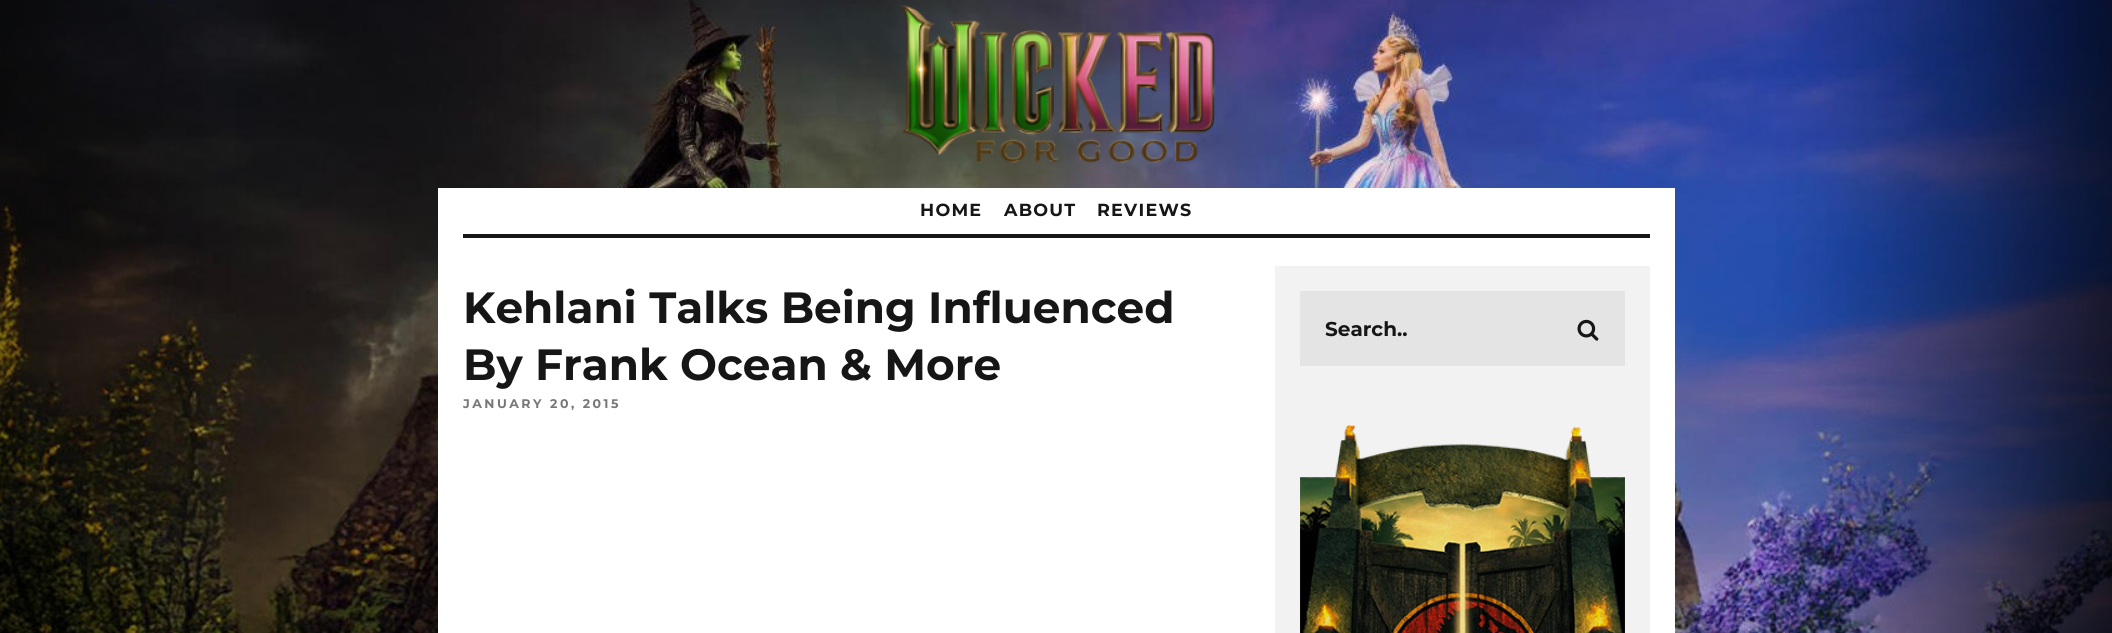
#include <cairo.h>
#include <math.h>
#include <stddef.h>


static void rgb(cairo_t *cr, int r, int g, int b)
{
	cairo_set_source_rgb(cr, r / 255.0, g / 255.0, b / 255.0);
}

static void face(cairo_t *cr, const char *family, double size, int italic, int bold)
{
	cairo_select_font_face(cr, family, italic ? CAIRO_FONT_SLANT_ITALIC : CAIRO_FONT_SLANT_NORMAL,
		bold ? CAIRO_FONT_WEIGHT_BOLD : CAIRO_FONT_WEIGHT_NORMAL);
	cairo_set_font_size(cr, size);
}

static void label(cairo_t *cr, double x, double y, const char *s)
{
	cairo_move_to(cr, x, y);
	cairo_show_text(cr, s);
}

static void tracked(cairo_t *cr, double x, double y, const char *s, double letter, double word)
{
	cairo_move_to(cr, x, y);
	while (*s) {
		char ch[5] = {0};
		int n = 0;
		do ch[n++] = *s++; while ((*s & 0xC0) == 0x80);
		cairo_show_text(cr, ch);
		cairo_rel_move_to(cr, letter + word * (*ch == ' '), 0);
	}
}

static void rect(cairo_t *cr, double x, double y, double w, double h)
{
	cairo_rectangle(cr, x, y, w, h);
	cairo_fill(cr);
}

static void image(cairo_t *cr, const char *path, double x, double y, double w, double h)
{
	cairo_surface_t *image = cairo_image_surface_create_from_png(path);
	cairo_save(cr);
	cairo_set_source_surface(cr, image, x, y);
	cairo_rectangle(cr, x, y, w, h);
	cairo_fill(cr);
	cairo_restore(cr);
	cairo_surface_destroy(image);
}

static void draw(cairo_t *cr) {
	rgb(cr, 255, 255, 255);
	cairo_paint(cr);
	image(cr, "image0.png", 0, 0, 2112, 633);
	rgb(cr, 255, 255, 255);
	rect(cr, 438, 188, 1237, 445);
	rgb(cr, 22, 22, 22);
	rect(cr, 463, 234, 1187, 4);
	face(cr, "Montserrat", 17.5, 0, 1);
	tracked(cr, 920, 216, "HOME", 1.25, 0);
	tracked(cr, 1004, 216, "ABOUT", 1.25, 0);
	tracked(cr, 1097, 216, "REVIEWS", 1.25, 0);
	face(cr, "Montserrat", 43.75, 0, 1);
	label(cr, 463, 323, "Kehlani Talks Being Influenced");
	label(cr, 463, 380, "By Frank Ocean & More");
	face(cr, "Montserrat", 12.5, 0, 1);
	rgb(cr, 119, 119, 119);
	tracked(cr, 463, 408, "JANUARY 20, 2015", 2.5, 0);
	rgb(cr, 242, 242, 242);
	rect(cr, 1275, 266, 375, 367);
	rgb(cr, 228, 228, 228);
	rect(cr, 1300, 291, 325, 75);
	face(cr, "Montserrat", 20, 0, 1);
	rgb(cr, 22, 22, 22);
	label(cr, 1325, 336, "Search..");
	image(cr, "image1.png", 1577, 319, 22, 22);
	image(cr, "image2.png", 1300, 424, 325, 209);
}

int main(void) {
	cairo_surface_t *surface = cairo_image_surface_create(CAIRO_FORMAT_RGB24, 2112, 633);
	cairo_t *cr = cairo_create(surface);
	cairo_font_options_t *options = cairo_font_options_create();
	cairo_font_options_set_hint_metrics(options, CAIRO_HINT_METRICS_OFF);
	cairo_font_options_set_hint_style(options, CAIRO_HINT_STYLE_NONE);
	cairo_set_font_options(cr, options);
	cairo_set_miter_limit(cr, 4);
	draw(cr);
	cairo_surface_write_to_png(surface, "render.png");
	cairo_font_options_destroy(options);
	cairo_destroy(cr);
	cairo_surface_destroy(surface);
	return 0;
}
